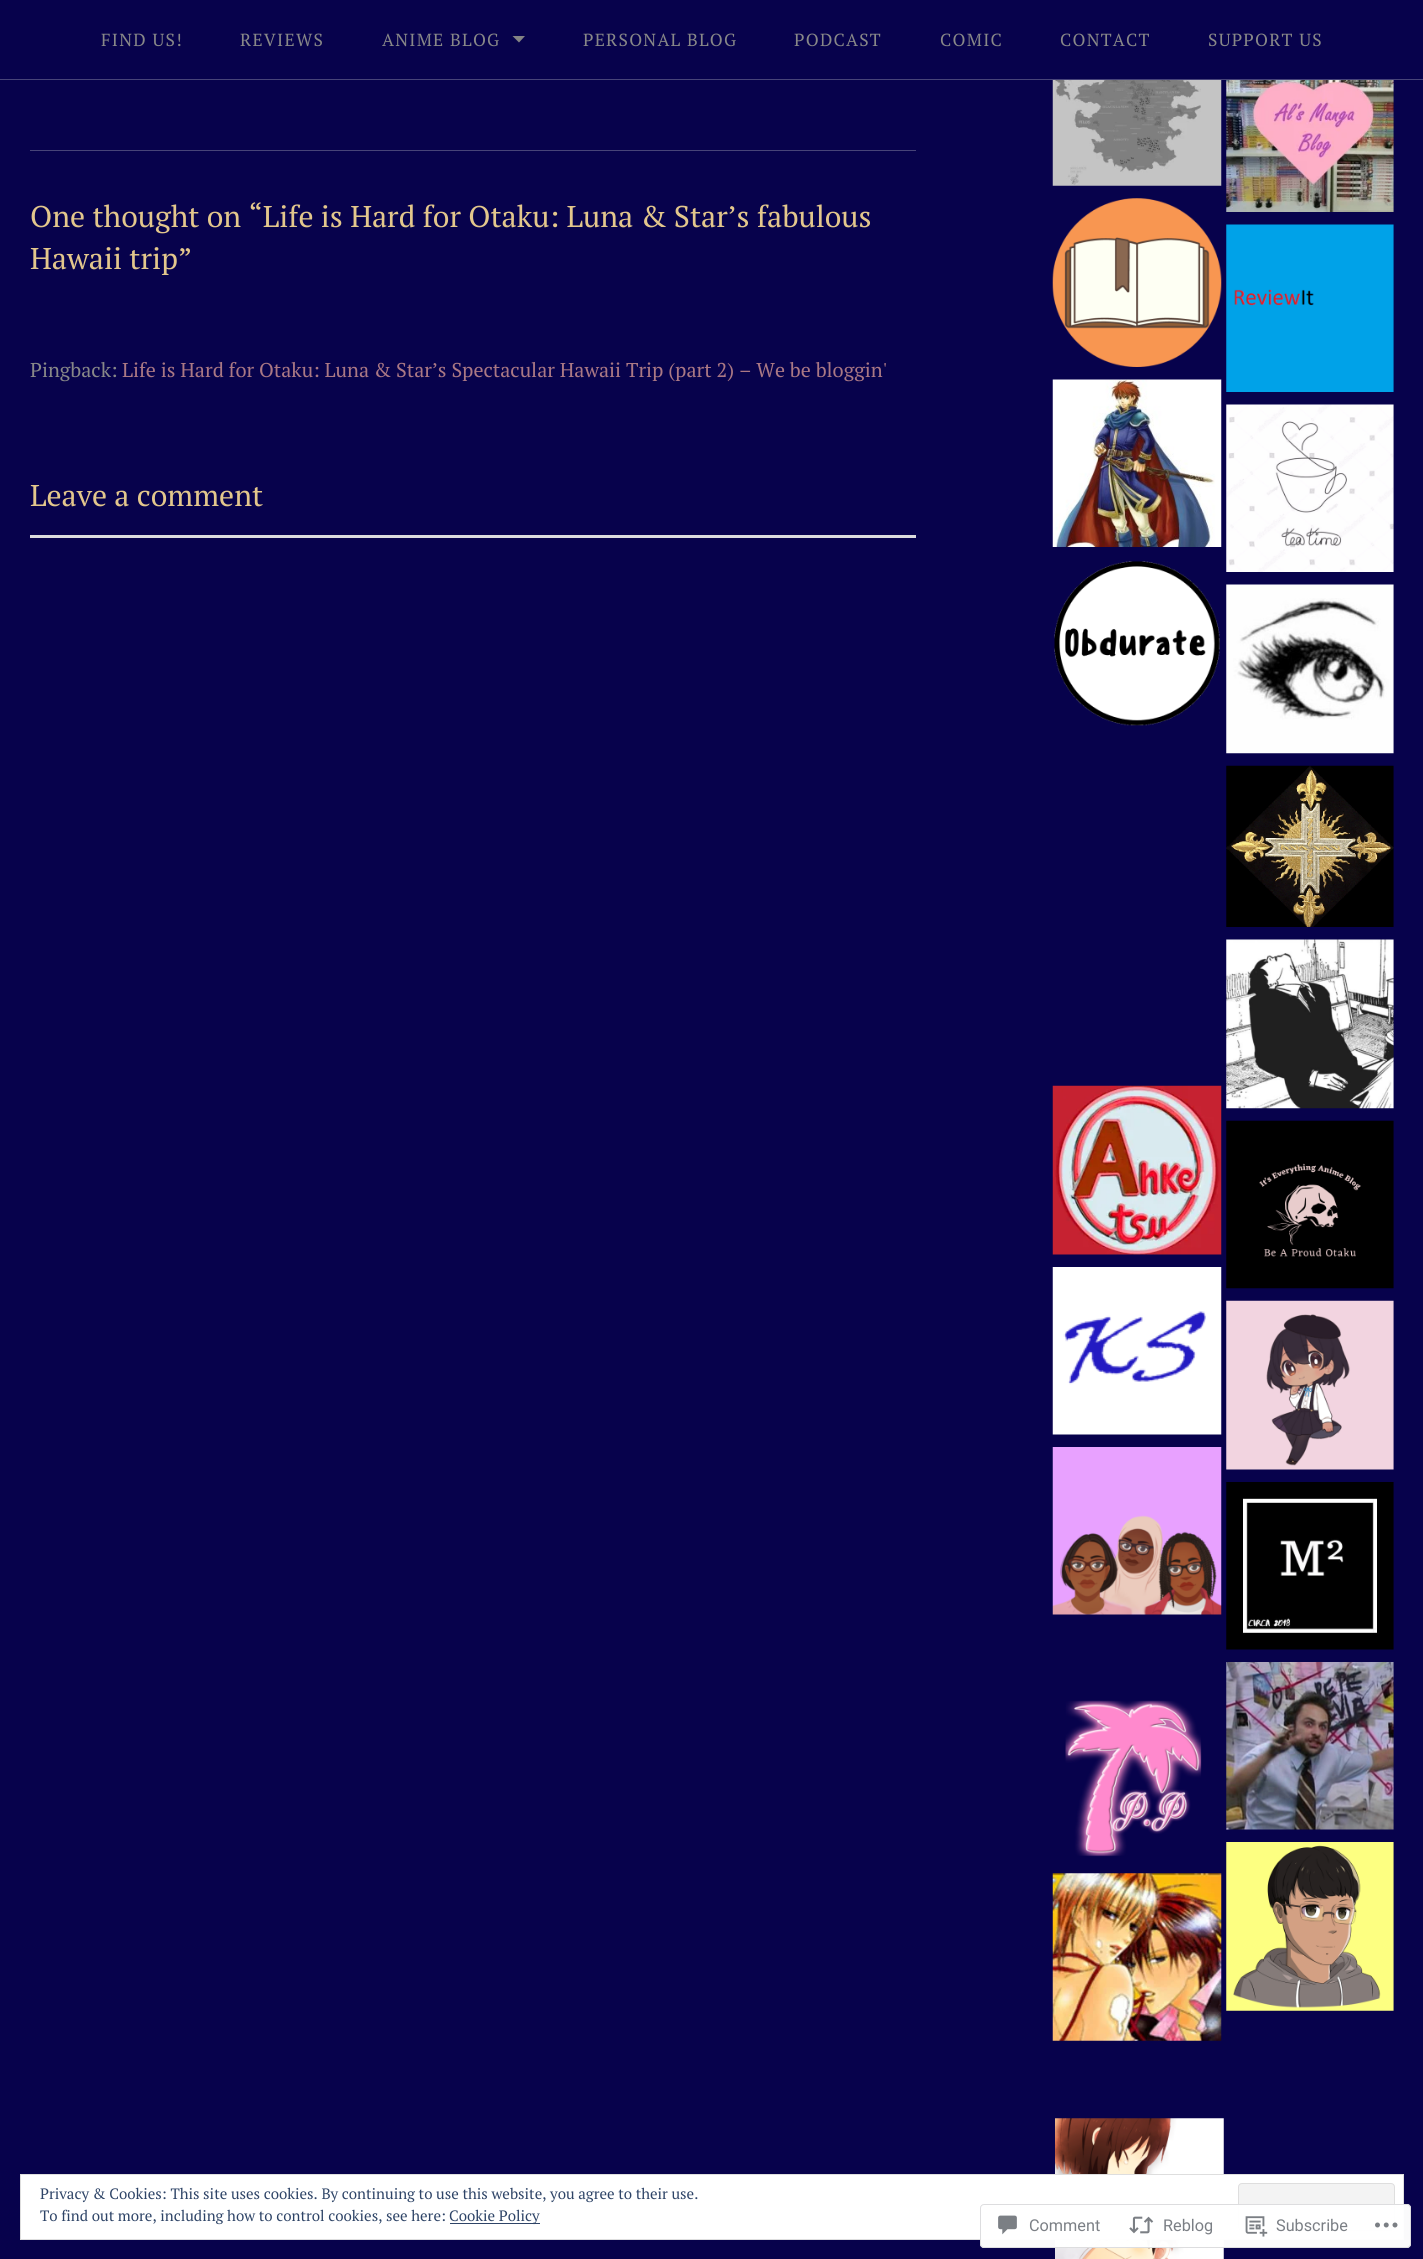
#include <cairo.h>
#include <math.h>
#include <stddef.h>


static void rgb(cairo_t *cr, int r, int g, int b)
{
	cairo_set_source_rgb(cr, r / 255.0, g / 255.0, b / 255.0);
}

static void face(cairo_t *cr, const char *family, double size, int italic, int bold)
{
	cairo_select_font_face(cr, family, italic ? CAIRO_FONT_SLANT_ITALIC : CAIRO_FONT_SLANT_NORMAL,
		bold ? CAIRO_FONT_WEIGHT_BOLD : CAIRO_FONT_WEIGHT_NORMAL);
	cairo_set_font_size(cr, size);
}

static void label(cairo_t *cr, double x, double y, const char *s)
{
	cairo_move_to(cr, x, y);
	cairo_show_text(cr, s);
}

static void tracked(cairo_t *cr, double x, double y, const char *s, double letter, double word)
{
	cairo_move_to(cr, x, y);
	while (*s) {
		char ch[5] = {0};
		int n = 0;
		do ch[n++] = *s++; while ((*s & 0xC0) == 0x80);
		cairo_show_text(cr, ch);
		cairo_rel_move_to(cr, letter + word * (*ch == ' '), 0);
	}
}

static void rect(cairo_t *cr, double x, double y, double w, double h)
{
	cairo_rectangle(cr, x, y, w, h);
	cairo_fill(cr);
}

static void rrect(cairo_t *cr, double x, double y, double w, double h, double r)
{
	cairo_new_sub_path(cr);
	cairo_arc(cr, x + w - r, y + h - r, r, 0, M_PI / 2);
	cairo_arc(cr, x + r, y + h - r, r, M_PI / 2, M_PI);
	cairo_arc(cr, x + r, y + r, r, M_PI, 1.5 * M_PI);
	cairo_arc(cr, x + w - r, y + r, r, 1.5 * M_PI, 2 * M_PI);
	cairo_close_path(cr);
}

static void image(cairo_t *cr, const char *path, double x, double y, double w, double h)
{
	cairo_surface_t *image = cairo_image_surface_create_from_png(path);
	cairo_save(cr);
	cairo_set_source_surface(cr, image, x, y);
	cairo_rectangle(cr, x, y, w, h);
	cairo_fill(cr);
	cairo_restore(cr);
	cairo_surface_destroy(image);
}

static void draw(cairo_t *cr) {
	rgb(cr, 7, 2, 76);
	cairo_paint(cr);
	rgb(cr, 71, 68, 120);
	rect(cr, 0, 79, 1423, 1);
	face(cr, "PT Serif", 17.5, 0, 0);
	rgb(cr, 136, 136, 136);
	tracked(cr, 101, 46, "FIND US!", 1.25, 0);
	tracked(cr, 240, 46, "REVIEWS", 1.25, 0);
	tracked(cr, 382, 46, "ANIME BLOG", 1.25, 0);
	rgb(cr, 132, 132, 132);
	cairo_new_path(cr);
	cairo_move_to(cr, 512.5, 36);
	cairo_line_to(cr, 525, 36);
	cairo_line_to(cr, 519, 42.5);
	cairo_close_path(cr);
	cairo_fill(cr);
	rgb(cr, 136, 136, 136);
	tracked(cr, 583, 46, "PERSONAL BLOG", 1.25, 0);
	tracked(cr, 794, 46, "PODCAST", 1.25, 0);
	tracked(cr, 940, 46, "COMIC", 1.25, 0);
	tracked(cr, 1060, 46, "CONTACT", 1.25, 0);
	tracked(cr, 1208, 46, "SUPPORT US", 1.25, 0);
	rgb(cr, 71, 68, 120);
	rect(cr, 30, 150, 886, 1);
	face(cr, "PT Serif", 30, 0, 0);
	rgb(cr, 227, 199, 140);
	label(cr, 30, 227, "One thought on “Life is Hard for Otaku: Luna & Star’s fabulous");
	label(cr, 30, 269, "Hawaii trip”");
	face(cr, "PT Serif", 20, 0, 0);
	rgb(cr, 136, 136, 136);
	label(cr, 30, 377, "Pingback:");
	rgb(cr, 170, 120, 132);
	label(cr, 122, 377, "Life is Hard for Otaku: Luna & Star’s Spectacular Hawaii Trip (part 2) – We be bloggin'");
	face(cr, "PT Serif", 30, 0, 0);
	rgb(cr, 227, 199, 140);
	label(cr, 30, 506, "Leave a comment");
	rgb(cr, 220, 220, 222);
	rect(cr, 30, 535, 886, 3);
	image(cr, "image0.png", 1052, 80, 170, 106);
	image(cr, "image1.png", 1226, 80, 168, 132);
	image(cr, "image2.png", 1052, 198, 170, 169);
	image(cr, "image3.png", 1226, 224, 168, 168);
	image(cr, "image4.png", 1052, 379, 170, 168);
	image(cr, "image5.png", 1226, 404, 168, 168);
	image(cr, "image6.png", 1054, 561, 166, 165);
	image(cr, "image7.png", 1226, 584, 168, 170);
	image(cr, "image8.png", 1226, 765, 168, 162);
	image(cr, "image9.png", 1226, 939, 168, 170);
	image(cr, "image10.png", 1052, 1085, 170, 170);
	image(cr, "image11.png", 1226, 1120, 168, 169);
	image(cr, "image12.png", 1052, 1267, 170, 168);
	image(cr, "image13.png", 1226, 1300, 168, 170);
	image(cr, "image14.png", 1052, 1447, 170, 168);
	image(cr, "image15.png", 1226, 1482, 168, 168);
	image(cr, "image16.png", 1065, 1700, 137, 157);
	image(cr, "image17.png", 1226, 1662, 168, 168);
	image(cr, "image18.png", 1052, 1873, 170, 168);
	image(cr, "image19.png", 1226, 1842, 168, 169);
	image(cr, "image20.png", 1055, 2118, 169, 141);
	rgb(cr, 255, 255, 255);
	cairo_rectangle(cr, 20.5, 2174.5, 1383, 65);
	cairo_fill_preserve(cr);
	rgb(cr, 222, 222, 222);
	cairo_set_line_width(cr, 1);
	cairo_stroke(cr);
	face(cr, "PT Serif", 15, 0, 0);
	rgb(cr, 46, 68, 103);
	label(cr, 40, 2199, "Privacy & Cookies: This site uses cookies. By continuing to use this website, you agree to their use.");
	rgb(cr, 243, 243, 243);
	rrect(cr, 1238.5, 2183.5, 156, 47, 3.5);
	cairo_fill_preserve(cr);
	rgb(cr, 222, 222, 222);
	cairo_stroke(cr);
	rgb(cr, 46, 68, 103);
	label(cr, 40, 2221, "To find out more, including how to control cookies, see here:");
	rect(cr, 450, 2223, 90, 1);
	label(cr, 449, 2221, "Cookie Policy");
	cairo_set_source_rgba(cr, 1, 1, 1, 0.98);
	rrect(cr, 980, 2204, 431, 44, 4);
	cairo_fill(cr);
	rrect(cr, 980.5, 2204.5, 430, 43, 3.5);
	cairo_set_source_rgba(cr, 0.863, 0.863, 0.871, 0.98);
	cairo_stroke(cr);
	image(cr, "image21.png", 998, 2215, 19, 20);
	face(cr, "Roboto", 16.25, 0, 0);
	rgb(cr, 123, 127, 133);
	label(cr, 1029, 2231, "Comment");
	image(cr, "image22.png", 1129, 2216, 25, 18);
	label(cr, 1163, 2231, "Reblog");
	image(cr, "image23.png", 1245, 2216, 23, 21);
	label(cr, 1276, 2231, "Subscribe");
	image(cr, "image24.png", 1375, 2222, 23, 6);
}

int main(void) {
	cairo_surface_t *surface = cairo_image_surface_create(CAIRO_FORMAT_RGB24, 1423, 2259);
	cairo_t *cr = cairo_create(surface);
	cairo_font_options_t *options = cairo_font_options_create();
	cairo_font_options_set_hint_metrics(options, CAIRO_HINT_METRICS_OFF);
	cairo_font_options_set_hint_style(options, CAIRO_HINT_STYLE_NONE);
	cairo_set_font_options(cr, options);
	cairo_set_miter_limit(cr, 4);
	draw(cr);
	cairo_surface_write_to_png(surface, "render.png");
	cairo_font_options_destroy(options);
	cairo_destroy(cr);
	cairo_surface_destroy(surface);
	return 0;
}
